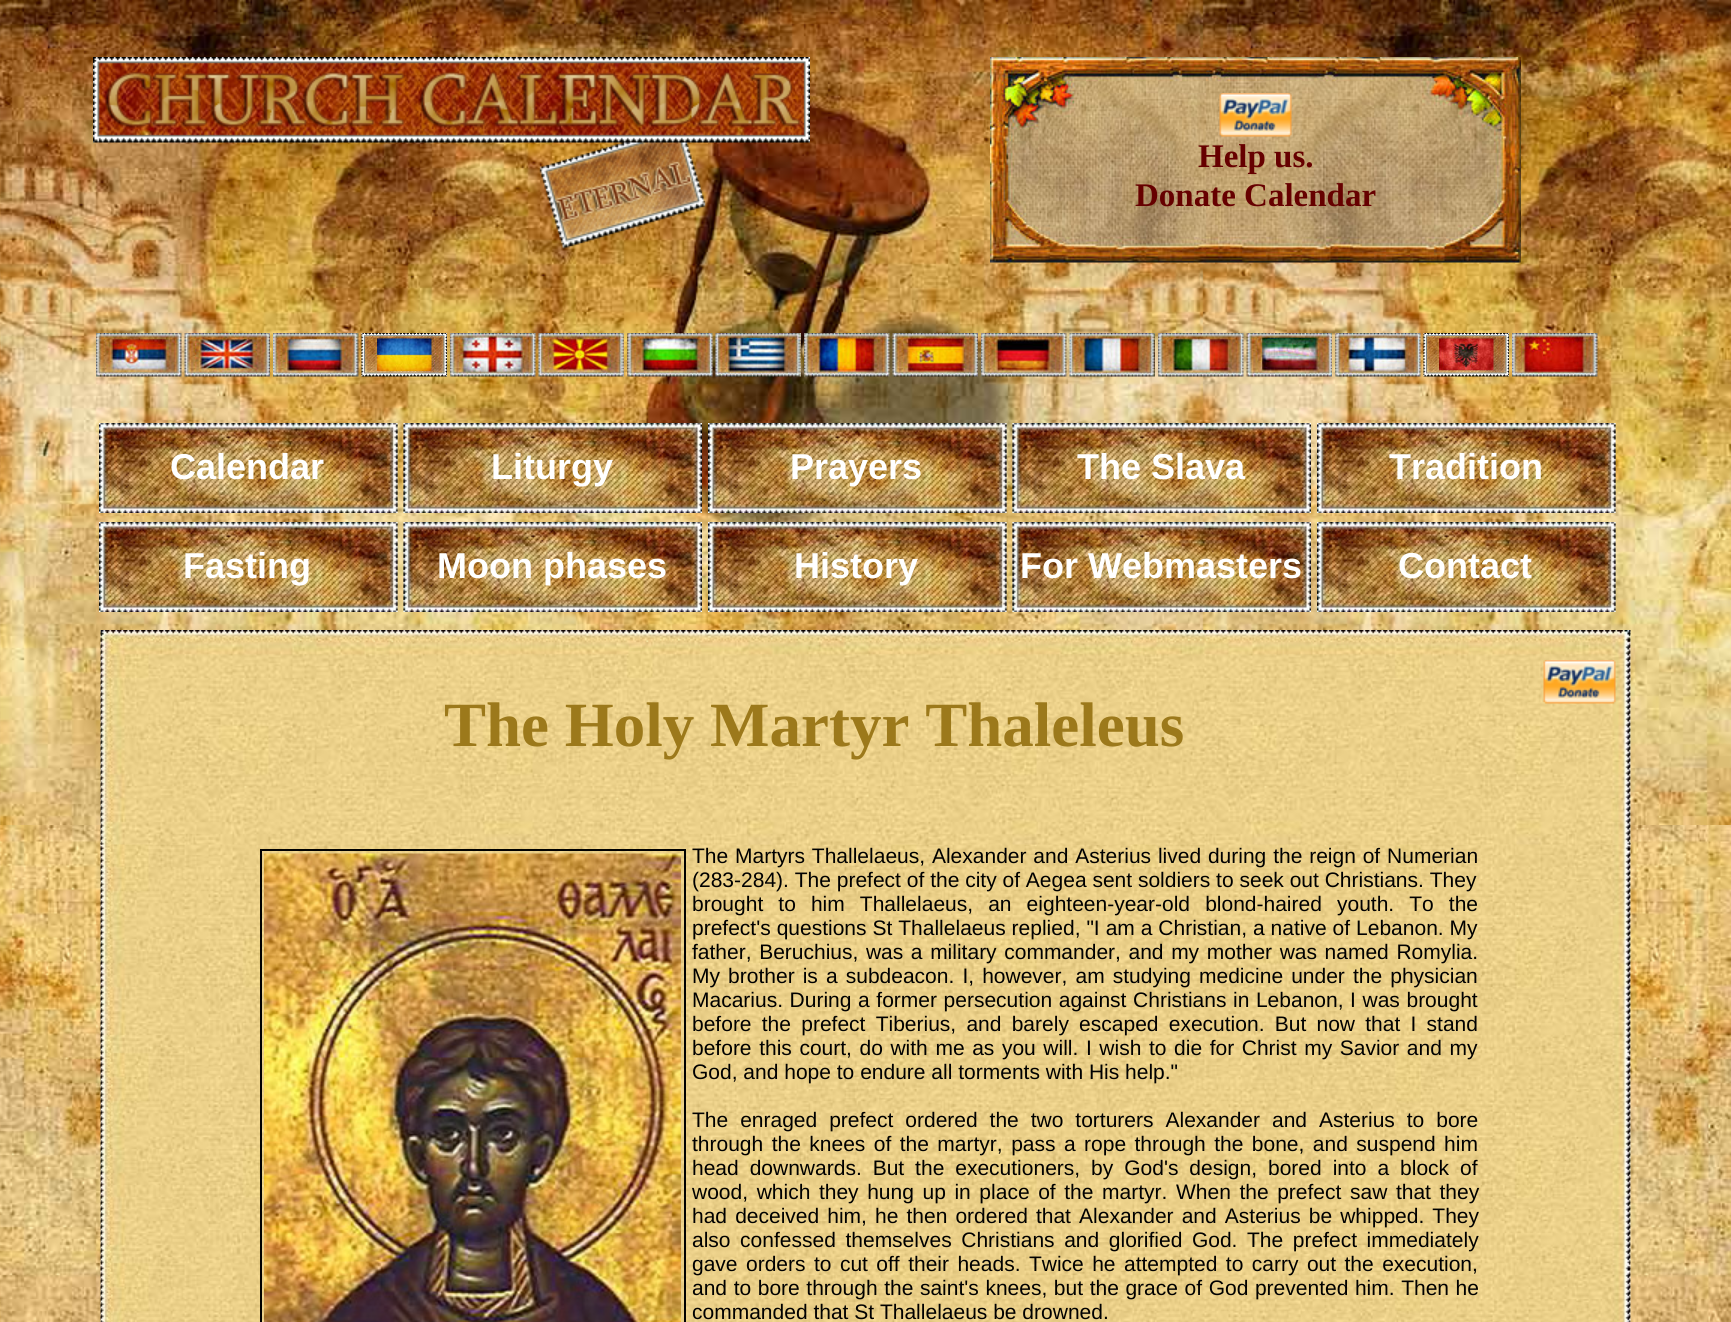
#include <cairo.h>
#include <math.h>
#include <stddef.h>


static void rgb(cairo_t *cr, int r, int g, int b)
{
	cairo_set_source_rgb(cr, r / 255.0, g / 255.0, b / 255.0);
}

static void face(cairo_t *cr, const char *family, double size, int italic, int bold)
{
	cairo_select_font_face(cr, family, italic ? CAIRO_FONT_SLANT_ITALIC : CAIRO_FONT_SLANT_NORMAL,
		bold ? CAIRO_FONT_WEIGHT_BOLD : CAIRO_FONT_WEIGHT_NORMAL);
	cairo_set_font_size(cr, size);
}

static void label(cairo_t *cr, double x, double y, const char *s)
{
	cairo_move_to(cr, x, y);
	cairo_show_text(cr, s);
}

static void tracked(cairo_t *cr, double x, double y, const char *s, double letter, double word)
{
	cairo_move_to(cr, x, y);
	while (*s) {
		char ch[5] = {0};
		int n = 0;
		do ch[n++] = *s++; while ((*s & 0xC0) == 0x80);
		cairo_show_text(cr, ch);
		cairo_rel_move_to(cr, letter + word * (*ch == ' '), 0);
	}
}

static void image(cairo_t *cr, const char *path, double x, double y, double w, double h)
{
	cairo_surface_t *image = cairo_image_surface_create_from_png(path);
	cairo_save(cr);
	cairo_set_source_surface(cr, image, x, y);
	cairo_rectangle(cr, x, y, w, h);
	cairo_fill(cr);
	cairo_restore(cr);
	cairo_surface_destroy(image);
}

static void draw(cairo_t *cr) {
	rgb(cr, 255, 255, 255);
	cairo_paint(cr);
	image(cr, "image0.png", 0, 825, 1731, 497);
	image(cr, "image1.png", 0, 0, 1731, 825);
	image(cr, "image2.png", 93, 57, 717, 192);
	image(cr, "image3.png", 990, 57, 531, 206);
	image(cr, "image4.png", 1219, 93, 73, 44);
	face(cr, "Liberation Serif", 33, 0, 1);
	rgb(cr, 102, 0, 0);
	label(cr, 1198, 167, "Help us.");
	label(cr, 1135, 206, "Donate Calendar");
	image(cr, "image5.png", 96, 333, 86, 44);
	image(cr, "image6.png", 184, 333, 86, 44);
	image(cr, "image7.png", 273, 333, 86, 44);
	image(cr, "image8.png", 361, 333, 86, 44);
	image(cr, "image9.png", 450, 333, 86, 44);
	image(cr, "image10.png", 538, 333, 86, 44);
	image(cr, "image11.png", 627, 333, 86, 44);
	image(cr, "image12.png", 715, 333, 86, 44);
	image(cr, "image13.png", 804, 333, 86, 44);
	image(cr, "image14.png", 892, 333, 86, 44);
	image(cr, "image15.png", 981, 333, 86, 44);
	image(cr, "image16.png", 1069, 333, 86, 44);
	image(cr, "image17.png", 1158, 333, 86, 44);
	image(cr, "image18.png", 1246, 333, 86, 44);
	image(cr, "image19.png", 1335, 333, 86, 44);
	image(cr, "image20.png", 1423, 333, 86, 44);
	image(cr, "image21.png", 1512, 333, 86, 44);
	image(cr, "image22.png", 397, 423, 1, 90);
	image(cr, "image23.png", 99, 423, 299, 90);
	face(cr, "Liberation Sans", 36, 0, 1);
	rgb(cr, 255, 255, 255);
	label(cr, 170, 479, "Calendar");
	image(cr, "image24.png", 403, 423, 1, 90);
	image(cr, "image25.png", 403, 423, 299, 90);
	label(cr, 491, 479, "Liturgy");
	image(cr, "image26.png", 1006, 423, 1, 90);
	image(cr, "image27.png", 708, 423, 299, 90);
	label(cr, 790, 479, "Prayers");
	image(cr, "image28.png", 1012, 423, 1, 90);
	image(cr, "image29.png", 1012, 423, 299, 90);
	label(cr, 1077, 479, "The Slava");
	image(cr, "image30.png", 1615, 423, 1, 90);
	image(cr, "image31.png", 1317, 423, 299, 90);
	label(cr, 1389, 479, "Tradition");
	image(cr, "image32.png", 397, 522, 1, 90);
	image(cr, "image33.png", 99, 522, 299, 90);
	label(cr, 183, 578, "Fasting");
	image(cr, "image34.png", 403, 522, 1, 90);
	image(cr, "image35.png", 403, 522, 299, 90);
	label(cr, 437, 578, "Moon phases");
	image(cr, "image36.png", 1006, 522, 1, 90);
	image(cr, "image37.png", 708, 522, 299, 90);
	label(cr, 794, 578, "History");
	image(cr, "image38.png", 1012, 522, 1, 90);
	image(cr, "image39.png", 1012, 522, 299, 90);
	label(cr, 1020, 578, "For Webmasters");
	image(cr, "image40.png", 1615, 522, 1, 90);
	image(cr, "image41.png", 1317, 522, 299, 90);
	label(cr, 1398, 578, "Contact");
	image(cr, "image44.png", 100, 843, 1531, 479);
	image(cr, "image42.png", 100, 630, 1531, 215);
	image(cr, "image43.png", 1543, 660, 73, 44);
	face(cr, "Liberation Serif", 63, 0, 1);
	rgb(cr, 156, 121, 27);
	label(cr, 444, 746, "The Holy Martyr Thaleleus");
	cairo_rectangle(cr, 261, 850, 424, 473);
	rgb(cr, 0, 0, 0);
	cairo_stroke(cr);
	image(cr, "image45.png", 264, 853, 417, 469);
	face(cr, "Liberation Sans", 21, 0, 0);
	tracked(cr, 692, 863, "The Martyrs Thallelaeus, Alexander and Asterius lived during the reign of Numerian", 0, 1);
	label(cr, 692, 887, "(283-284). The prefect of the city of Aegea sent soldiers to seek out Christians. They");
	tracked(cr, 692, 911, "brought to him Thallelaeus, an eighteen-year-old blond-haired youth. To the", 0, 9.25);
	tracked(cr, 692, 935, "prefect's questions St Thallelaeus replied, \"I am a Christian, a native of Lebanon. My", 0, 0.1);
	tracked(cr, 692, 959, "father, Beruchius, was a military commander, and my mother was named Romylia.", 0, 1.75);
	tracked(cr, 692, 983, "My brother is a subdeacon. I, however, am studying medicine under the physician", 0, 2.25);
	tracked(cr, 692, 1007, "Macarius. During a former persecution against Christians in Lebanon, I was brought", 0, 0.75);
	tracked(cr, 692, 1031, "before the prefect Tiberius, and barely escaped execution. But now that I stand", 0, 4.4);
	tracked(cr, 692, 1055, "before this court, do with me as you will. I wish to die for Christ my Savior and my", 0, 1.75);
	label(cr, 692, 1079, "God, and hope to endure all torments with His help.\"");
	tracked(cr, 692, 1127, "The enraged prefect ordered the two torturers Alexander and Asterius to bore", 0, 6.1);
	tracked(cr, 692, 1151, "through the knees of the martyr, pass a rope through the bone, and suspend him", 0, 2.6);
	tracked(cr, 692, 1175, "head downwards. But the executioners, by God's design, bored into a block of", 0, 5.1);
	tracked(cr, 692, 1199, "wood, which they hung up in place of the martyr. When the prefect saw that they", 0, 2.75);
	tracked(cr, 692, 1223, "had deceived him, he then ordered that Alexander and Asterius be whipped. They", 0, 2.25);
	tracked(cr, 692, 1247, "also confessed themselves Christians and glorified God. The prefect immediately", 0, 3.75);
	tracked(cr, 692, 1271, "gave orders to cut off their heads. Twice he attempted to carry out the execution,", 0, 2.6);
	tracked(cr, 692, 1295, "and to bore through the saint's knees, but the grace of God prevented him. Then he", 0, 0.75);
	label(cr, 692, 1319, "commanded that St Thallelaeus be drowned.");
}

int main(void) {
	cairo_surface_t *surface = cairo_image_surface_create(CAIRO_FORMAT_RGB24, 1731, 1322);
	cairo_t *cr = cairo_create(surface);
	cairo_font_options_t *options = cairo_font_options_create();
	cairo_font_options_set_hint_metrics(options, CAIRO_HINT_METRICS_OFF);
	cairo_font_options_set_hint_style(options, CAIRO_HINT_STYLE_NONE);
	cairo_set_font_options(cr, options);
	cairo_set_miter_limit(cr, 4);
	draw(cr);
	cairo_surface_write_to_png(surface, "render.png");
	cairo_font_options_destroy(options);
	cairo_destroy(cr);
	cairo_surface_destroy(surface);
	return 0;
}
